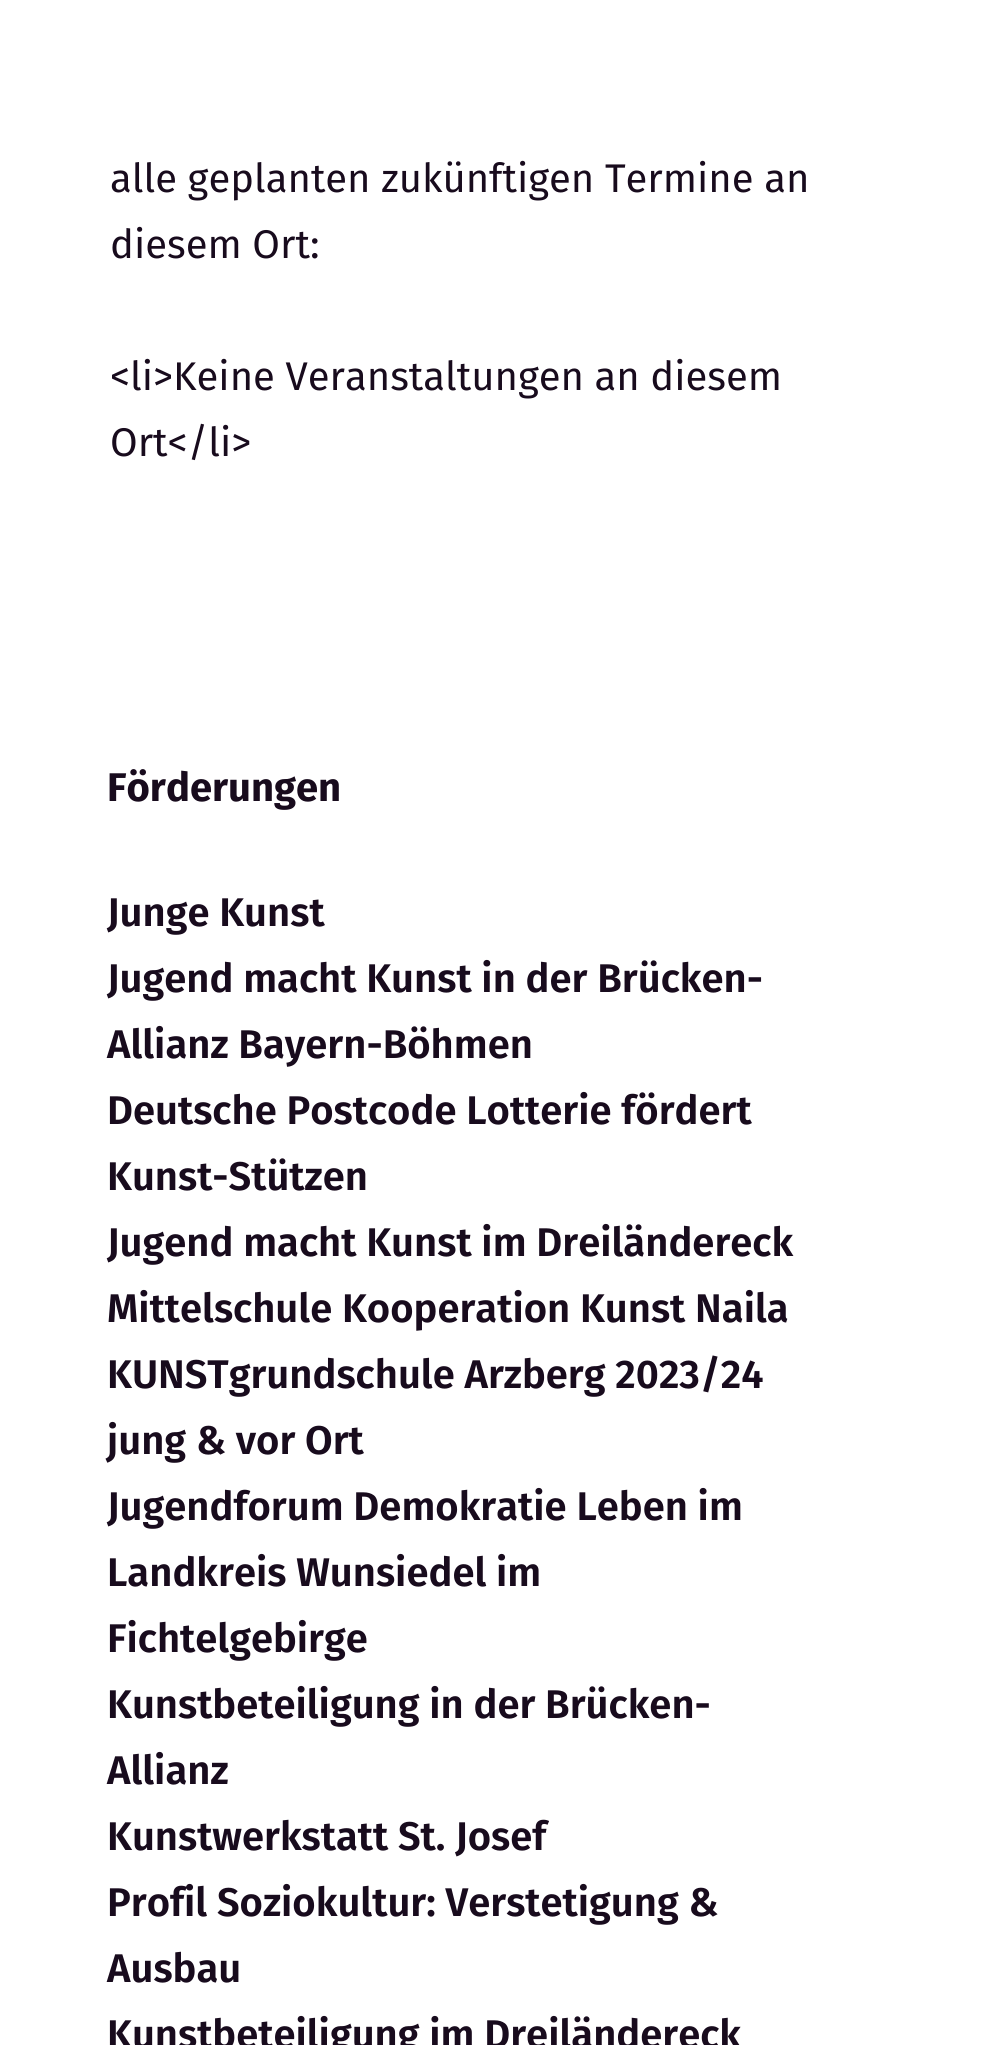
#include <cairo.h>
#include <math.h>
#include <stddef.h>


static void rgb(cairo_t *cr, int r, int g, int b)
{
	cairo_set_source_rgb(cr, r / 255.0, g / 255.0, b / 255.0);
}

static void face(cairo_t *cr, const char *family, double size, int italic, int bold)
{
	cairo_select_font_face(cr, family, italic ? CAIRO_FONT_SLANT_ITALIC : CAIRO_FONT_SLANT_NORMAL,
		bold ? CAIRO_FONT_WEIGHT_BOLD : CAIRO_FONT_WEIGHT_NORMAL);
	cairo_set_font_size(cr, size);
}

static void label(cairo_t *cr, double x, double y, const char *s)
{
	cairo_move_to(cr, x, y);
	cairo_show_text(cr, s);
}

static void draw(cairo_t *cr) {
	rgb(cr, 255, 255, 255);
	cairo_paint(cr);
	face(cr, "Fira Sans", 40, 0, 0);
	rgb(cr, 24, 11, 29);
	label(cr, 110, 192, "alle geplanten zukünftigen Termine an");
	label(cr, 110, 258, "diesem Ort:");
	label(cr, 110, 390, "<li>Keine Veranstaltungen an diesem");
	label(cr, 110, 456, "Ort</li>");
	face(cr, "Fira Sans", 40, 0, 1);
	label(cr, 107, 801, "Förderungen");
	face(cr, "Fira Sans SemiBold", 40, 0, 0);
	label(cr, 107, 926, "Junge Kunst");
	label(cr, 107, 992, "Jugend macht Kunst in der Brücken-");
	label(cr, 107, 1058, "Allianz Bayern-Böhmen");
	label(cr, 107, 1124, "Deutsche Postcode Lotterie fördert");
	label(cr, 107, 1190, "Kunst-Stützen");
	label(cr, 107, 1256, "Jugend macht Kunst im Dreiländereck");
	label(cr, 107, 1322, "Mittelschule Kooperation Kunst Naila");
	label(cr, 107, 1388, "KUNSTgrundschule Arzberg 2023/24");
	label(cr, 107, 1454, "jung & vor Ort");
	label(cr, 107, 1520, "Jugendforum Demokratie Leben im");
	label(cr, 107, 1586, "Landkreis Wunsiedel im");
	label(cr, 107, 1652, "Fichtelgebirge");
	label(cr, 107, 1718, "Kunstbeteiligung in der Brücken-");
	label(cr, 107, 1784, "Allianz");
	label(cr, 107, 1850, "Kunstwerkstatt St. Josef");
	label(cr, 107, 1916, "Profil Soziokultur: Verstetigung &");
	label(cr, 107, 1982, "Ausbau");
	label(cr, 107, 2048, "Kunstbeteiligung im Dreiländereck");
}

int main(void) {
	cairo_surface_t *surface = cairo_image_surface_create(CAIRO_FORMAT_RGB24, 997, 2045);
	cairo_t *cr = cairo_create(surface);
	cairo_font_options_t *options = cairo_font_options_create();
	cairo_font_options_set_hint_metrics(options, CAIRO_HINT_METRICS_OFF);
	cairo_font_options_set_hint_style(options, CAIRO_HINT_STYLE_NONE);
	cairo_set_font_options(cr, options);
	cairo_set_miter_limit(cr, 4);
	draw(cr);
	cairo_surface_write_to_png(surface, "render.png");
	cairo_font_options_destroy(options);
	cairo_destroy(cr);
	cairo_surface_destroy(surface);
	return 0;
}
